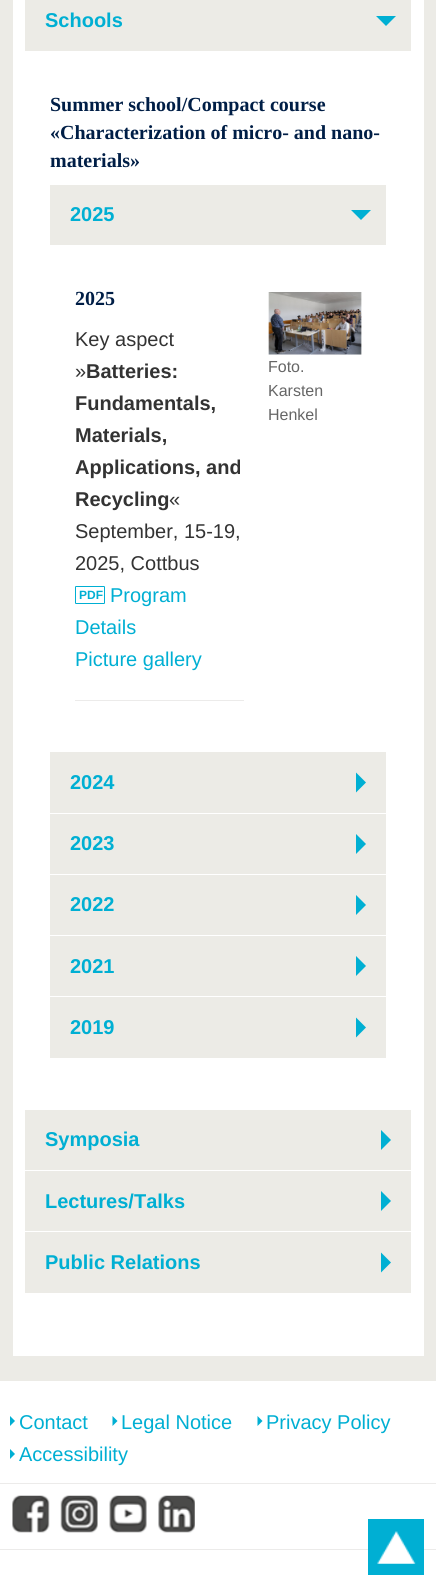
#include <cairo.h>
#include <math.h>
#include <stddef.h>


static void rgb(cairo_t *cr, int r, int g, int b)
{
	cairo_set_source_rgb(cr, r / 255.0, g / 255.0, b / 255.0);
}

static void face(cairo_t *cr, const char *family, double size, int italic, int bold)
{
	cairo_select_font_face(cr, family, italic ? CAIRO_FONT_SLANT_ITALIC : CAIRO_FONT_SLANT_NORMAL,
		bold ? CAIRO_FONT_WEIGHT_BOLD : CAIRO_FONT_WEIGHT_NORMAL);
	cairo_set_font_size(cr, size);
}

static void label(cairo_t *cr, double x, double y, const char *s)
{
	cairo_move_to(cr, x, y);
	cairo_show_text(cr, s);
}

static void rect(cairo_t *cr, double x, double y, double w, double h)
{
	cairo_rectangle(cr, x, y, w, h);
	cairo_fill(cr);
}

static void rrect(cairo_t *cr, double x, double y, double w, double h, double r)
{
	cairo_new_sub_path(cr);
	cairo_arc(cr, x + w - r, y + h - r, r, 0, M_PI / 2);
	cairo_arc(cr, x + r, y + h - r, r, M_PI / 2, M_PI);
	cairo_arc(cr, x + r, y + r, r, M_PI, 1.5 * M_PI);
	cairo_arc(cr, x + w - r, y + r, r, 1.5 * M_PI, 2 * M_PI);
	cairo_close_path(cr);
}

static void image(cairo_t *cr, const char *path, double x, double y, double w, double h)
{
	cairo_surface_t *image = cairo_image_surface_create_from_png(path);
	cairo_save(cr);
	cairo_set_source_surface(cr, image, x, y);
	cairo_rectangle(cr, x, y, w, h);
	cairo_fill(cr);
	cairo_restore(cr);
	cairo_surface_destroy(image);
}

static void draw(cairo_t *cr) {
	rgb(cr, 255, 255, 255);
	cairo_paint(cr);
	rgb(cr, 236, 235, 230);
	rect(cr, 0, 0, 436, 1381);
	rgb(cr, 255, 255, 255);
	rect(cr, 13, 0, 411, 1356);
	rgb(cr, 236, 235, 230);
	rect(cr, 25, 0, 386, 1293);
	rgb(cr, 255, 255, 255);
	rect(cr, 25, 51, 386, 1059);
	face(cr, "Liberation Sans", 20, 0, 1);
	rgb(cr, 0, 175, 211);
	label(cr, 45, 27, "Schools");
	cairo_new_path(cr);
	cairo_move_to(cr, 376, 16);
	cairo_line_to(cr, 396, 16);
	cairo_line_to(cr, 386, 26);
	cairo_close_path(cr);
	cairo_fill(cr);
	face(cr, "Liberation Serif", 20, 0, 1);
	rgb(cr, 0, 30, 70);
	label(cr, 50, 111, "Summer school/Compact course");
	label(cr, 50, 139, "«Characterization of micro- and nano-");
	label(cr, 50, 167, "materials»");
	rgb(cr, 236, 235, 230);
	rect(cr, 50, 185, 336, 873);
	rgb(cr, 255, 255, 255);
	rect(cr, 50, 245, 336, 507);
	face(cr, "Liberation Sans", 20, 0, 1);
	rgb(cr, 0, 175, 211);
	label(cr, 70, 221, "2025");
	cairo_new_path(cr);
	cairo_move_to(cr, 351, 210);
	cairo_line_to(cr, 371, 210);
	cairo_line_to(cr, 361, 220);
	cairo_close_path(cr);
	cairo_fill(cr);
	face(cr, "Liberation Serif", 20, 0, 1);
	rgb(cr, 0, 30, 70);
	label(cr, 75, 305, "2025");
	face(cr, "Liberation Sans", 20, 0, 0);
	rgb(cr, 51, 51, 51);
	label(cr, 75, 346, "Key aspect");
	label(cr, 75, 378, "»");
	face(cr, "Liberation Sans", 20, 0, 1);
	label(cr, 86, 378, "Batteries:");
	label(cr, 75, 410, "Fundamentals,");
	label(cr, 75, 442, "Materials,");
	label(cr, 75, 474, "Applications, and");
	label(cr, 75, 506, "Recycling");
	face(cr, "Liberation Sans", 20, 0, 0);
	label(cr, 169, 506, "«");
	label(cr, 75, 538, "September, 15-19,");
	label(cr, 75, 570, "2025, Cottbus");
	rrect(cr, 75.5, 586.5, 29, 17, 0.5);
	rgb(cr, 0, 175, 211);
	cairo_set_line_width(cr, 1);
	cairo_stroke(cr);
	face(cr, "Liberation Sans", 12, 0, 1);
	label(cr, 79, 599, "PDF");
	face(cr, "Liberation Sans", 20, 0, 0);
	label(cr, 110, 602, "Program");
	label(cr, 75, 634, "Details");
	label(cr, 75, 666, "Picture gallery");
	rgb(cr, 236, 235, 234);
	rect(cr, 75, 700, 169, 1);
	image(cr, "image0.png", 268, 292, 94, 63);
	face(cr, "Liberation Sans", 16, 0, 0);
	rgb(cr, 102, 102, 102);
	label(cr, 268, 372, "Foto.");
	label(cr, 268, 396, "Karsten");
	label(cr, 268, 420, "Henkel");
	rgb(cr, 255, 255, 255);
	rect(cr, 50, 813, 336, 1);
	face(cr, "Liberation Sans", 20, 0, 1);
	rgb(cr, 0, 175, 211);
	label(cr, 70, 789, "2024");
	cairo_new_path(cr);
	cairo_move_to(cr, 356, 792.5);
	cairo_line_to(cr, 356, 772.5);
	cairo_line_to(cr, 366, 782.5);
	cairo_close_path(cr);
	cairo_fill(cr);
	rgb(cr, 255, 255, 255);
	rect(cr, 50, 874, 336, 1);
	rgb(cr, 0, 175, 211);
	label(cr, 70, 850, "2023");
	cairo_new_path(cr);
	cairo_move_to(cr, 356, 854);
	cairo_line_to(cr, 356, 834);
	cairo_line_to(cr, 366, 844);
	cairo_close_path(cr);
	cairo_fill(cr);
	rgb(cr, 255, 255, 255);
	rect(cr, 50, 935, 336, 1);
	rgb(cr, 0, 175, 211);
	label(cr, 70, 911, "2022");
	cairo_new_path(cr);
	cairo_move_to(cr, 356, 915);
	cairo_line_to(cr, 356, 895);
	cairo_line_to(cr, 366, 905);
	cairo_close_path(cr);
	cairo_fill(cr);
	rgb(cr, 255, 255, 255);
	rect(cr, 50, 996, 336, 1);
	rgb(cr, 0, 175, 211);
	label(cr, 70, 973, "2021");
	cairo_new_path(cr);
	cairo_move_to(cr, 356, 976);
	cairo_line_to(cr, 356, 956);
	cairo_line_to(cr, 366, 966);
	cairo_close_path(cr);
	cairo_fill(cr);
	label(cr, 70, 1034, "2019");
	cairo_new_path(cr);
	cairo_move_to(cr, 356, 1037.5);
	cairo_line_to(cr, 356, 1017.5);
	cairo_line_to(cr, 366, 1027.5);
	cairo_close_path(cr);
	cairo_fill(cr);
	rgb(cr, 255, 255, 255);
	rect(cr, 25, 1170, 386, 1);
	rgb(cr, 0, 175, 211);
	label(cr, 45, 1146, "Symposia");
	cairo_new_path(cr);
	cairo_move_to(cr, 381, 1150);
	cairo_line_to(cr, 381, 1130);
	cairo_line_to(cr, 391, 1140);
	cairo_close_path(cr);
	cairo_fill(cr);
	rgb(cr, 255, 255, 255);
	rect(cr, 25, 1231, 386, 1);
	rgb(cr, 0, 175, 211);
	label(cr, 45, 1208, "Lectures/Talks");
	cairo_new_path(cr);
	cairo_move_to(cr, 381, 1211);
	cairo_line_to(cr, 381, 1191);
	cairo_line_to(cr, 391, 1201);
	cairo_close_path(cr);
	cairo_fill(cr);
	label(cr, 45, 1269, "Public Relations");
	cairo_new_path(cr);
	cairo_move_to(cr, 381, 1272.5);
	cairo_line_to(cr, 381, 1252.5);
	cairo_line_to(cr, 391, 1262.5);
	cairo_close_path(cr);
	cairo_fill(cr);
	cairo_new_path(cr);
	cairo_move_to(cr, 10, 1426);
	cairo_line_to(cr, 10, 1416);
	cairo_line_to(cr, 15, 1421);
	cairo_close_path(cr);
	cairo_fill(cr);
	face(cr, "Liberation Sans", 20, 0, 0);
	label(cr, 19, 1429, "Contact");
	cairo_new_path(cr);
	cairo_move_to(cr, 112.5, 1426);
	cairo_line_to(cr, 112.5, 1416);
	cairo_line_to(cr, 117.5, 1421);
	cairo_close_path(cr);
	cairo_fill(cr);
	label(cr, 121, 1429, "Legal Notice");
	cairo_new_path(cr);
	cairo_move_to(cr, 257.5, 1426);
	cairo_line_to(cr, 257.5, 1416);
	cairo_line_to(cr, 262.5, 1421);
	cairo_close_path(cr);
	cairo_fill(cr);
	label(cr, 266, 1429, "Privacy Policy");
	cairo_new_path(cr);
	cairo_move_to(cr, 10, 1459);
	cairo_line_to(cr, 10, 1449);
	cairo_line_to(cr, 15, 1454);
	cairo_close_path(cr);
	cairo_fill(cr);
	label(cr, 19, 1461, "Accessibility");
	rgb(cr, 236, 235, 234);
	rect(cr, 0, 1483, 436, 1);
	image(cr, "image1.png", 12, 1495, 38, 38);
	image(cr, "image2.png", 60, 1495, 38, 38);
	image(cr, "image3.png", 109, 1495, 38, 38);
	image(cr, "image4.png", 158, 1495, 37, 38);
	rect(cr, 0, 1549, 436, 1);
	rgb(cr, 0, 175, 211);
	rect(cr, 368, 1519, 56, 56);
	image(cr, "image5.png", 377, 1531, 39, 33);
}

int main(void) {
	cairo_surface_t *surface = cairo_image_surface_create(CAIRO_FORMAT_RGB24, 436, 1587);
	cairo_t *cr = cairo_create(surface);
	cairo_font_options_t *options = cairo_font_options_create();
	cairo_font_options_set_hint_metrics(options, CAIRO_HINT_METRICS_OFF);
	cairo_font_options_set_hint_style(options, CAIRO_HINT_STYLE_NONE);
	cairo_set_font_options(cr, options);
	cairo_set_miter_limit(cr, 4);
	draw(cr);
	cairo_surface_write_to_png(surface, "render.png");
	cairo_font_options_destroy(options);
	cairo_destroy(cr);
	cairo_surface_destroy(surface);
	return 0;
}
